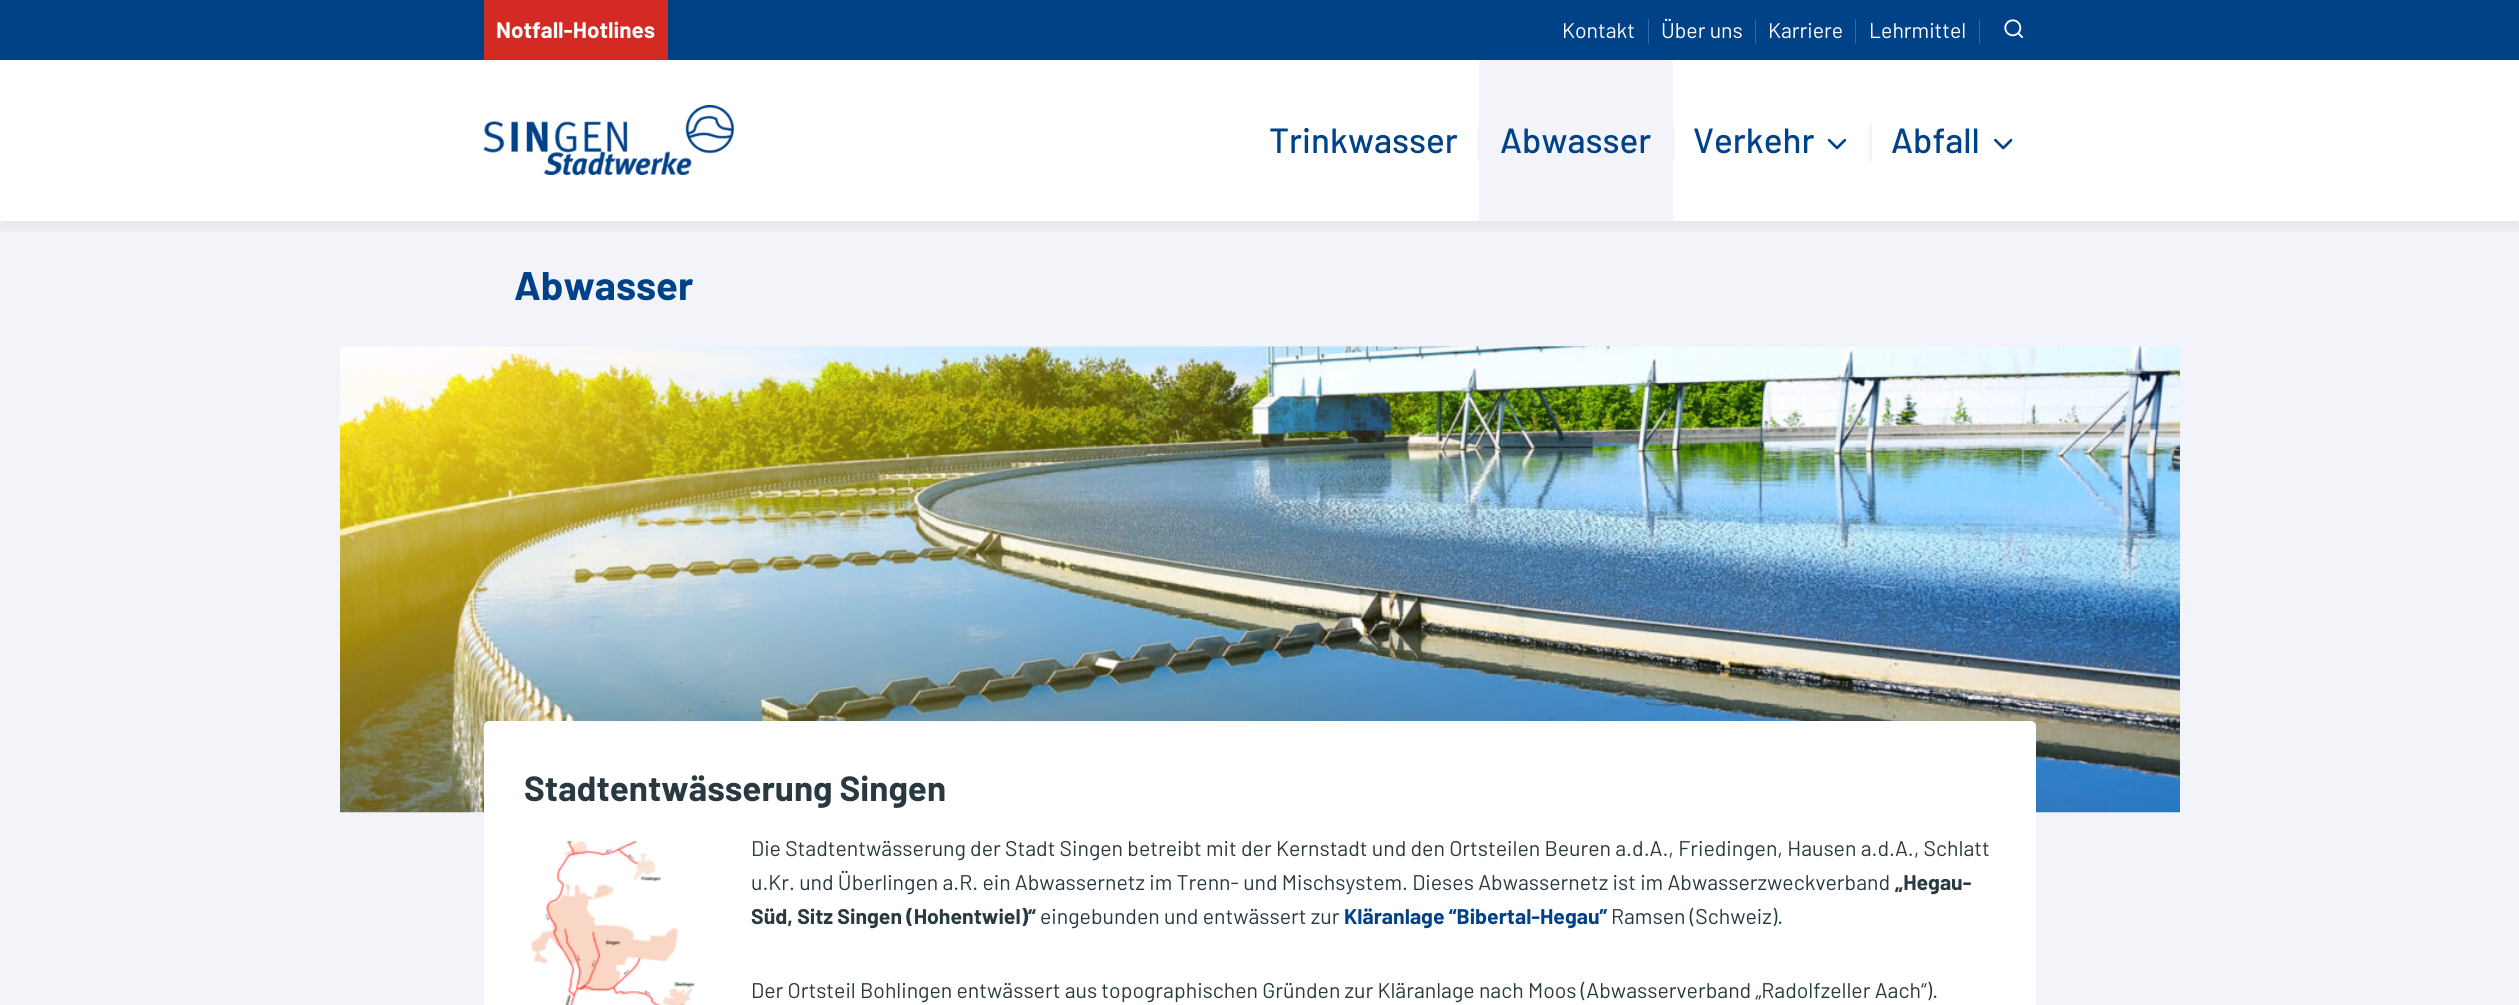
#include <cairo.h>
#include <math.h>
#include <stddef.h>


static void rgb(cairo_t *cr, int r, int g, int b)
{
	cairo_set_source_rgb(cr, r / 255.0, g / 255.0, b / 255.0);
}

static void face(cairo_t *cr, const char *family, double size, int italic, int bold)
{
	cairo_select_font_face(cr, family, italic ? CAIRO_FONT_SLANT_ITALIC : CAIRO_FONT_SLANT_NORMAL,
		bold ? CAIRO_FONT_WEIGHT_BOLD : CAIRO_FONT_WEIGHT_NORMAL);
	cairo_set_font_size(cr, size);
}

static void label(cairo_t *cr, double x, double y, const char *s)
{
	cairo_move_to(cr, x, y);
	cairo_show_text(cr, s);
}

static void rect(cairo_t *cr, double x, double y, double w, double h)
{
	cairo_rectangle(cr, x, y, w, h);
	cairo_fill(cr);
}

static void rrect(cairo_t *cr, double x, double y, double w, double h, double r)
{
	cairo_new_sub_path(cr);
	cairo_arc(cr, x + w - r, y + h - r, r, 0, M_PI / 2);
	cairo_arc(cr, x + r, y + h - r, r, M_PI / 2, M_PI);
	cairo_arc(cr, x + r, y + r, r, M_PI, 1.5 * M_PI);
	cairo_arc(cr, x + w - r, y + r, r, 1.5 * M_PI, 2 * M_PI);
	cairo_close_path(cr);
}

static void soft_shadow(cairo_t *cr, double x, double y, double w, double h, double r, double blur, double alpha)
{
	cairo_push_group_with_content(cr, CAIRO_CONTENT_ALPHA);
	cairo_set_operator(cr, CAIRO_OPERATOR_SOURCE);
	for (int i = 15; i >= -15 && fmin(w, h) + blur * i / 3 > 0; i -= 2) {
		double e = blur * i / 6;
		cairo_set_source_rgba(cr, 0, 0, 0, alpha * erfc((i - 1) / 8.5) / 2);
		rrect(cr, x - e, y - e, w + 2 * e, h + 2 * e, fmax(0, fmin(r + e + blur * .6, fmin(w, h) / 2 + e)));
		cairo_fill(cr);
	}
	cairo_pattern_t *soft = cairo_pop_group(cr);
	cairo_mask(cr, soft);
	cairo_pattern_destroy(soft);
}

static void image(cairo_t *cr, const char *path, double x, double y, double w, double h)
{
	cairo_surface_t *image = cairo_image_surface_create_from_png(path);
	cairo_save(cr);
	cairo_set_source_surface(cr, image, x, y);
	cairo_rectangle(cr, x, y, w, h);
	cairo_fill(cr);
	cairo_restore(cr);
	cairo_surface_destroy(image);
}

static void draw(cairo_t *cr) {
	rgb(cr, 242, 244, 249);
	cairo_paint(cr);
	rgb(cr, 255, 255, 255);
	rect(cr, 0, 60, 2519, 161);
	cairo_save(cr);
	cairo_rectangle(cr, 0, 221, 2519, 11);
	cairo_clip(cr);
	rgb(cr, 0, 0, 0);
	soft_shadow(cr, 0, 6, 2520, 222, 0, 9.5, 0.06);
	cairo_restore(cr);
	rgb(cr, 0, 66, 136);
	rect(cr, 0, 0, 2519, 60);
	rgb(cr, 211, 43, 36);
	rect(cr, 484, 0, 184, 60);
	face(cr, "Barlow", 22.5, 0, 1);
	rgb(cr, 255, 255, 255);
	label(cr, 496, 38, "Notfall-Hotlines");
	face(cr, "Barlow", 21.25, 0, 0);
	label(cr, 1562, 38, "Kontakt");
	rgb(cr, 51, 103, 159);
	rect(cr, 1648, 19, 1, 25);
	rgb(cr, 255, 255, 255);
	label(cr, 1661, 38, "Über uns");
	rgb(cr, 51, 103, 159);
	rect(cr, 1755, 19, 1, 25);
	rgb(cr, 255, 255, 255);
	label(cr, 1768, 38, "Karriere");
	rgb(cr, 51, 103, 159);
	rect(cr, 1855, 19, 1, 25);
	rgb(cr, 255, 255, 255);
	label(cr, 1869, 38, "Lehrmittel");
	rgb(cr, 51, 103, 159);
	rect(cr, 1979, 19, 1, 25);
	image(cr, "image0.png", 2004, 19, 20, 20);
	image(cr, "image1.png", 483, 105, 251, 70);
	face(cr, "Barlow Medium", 35, 0, 0);
	rgb(cr, 0, 66, 136);
	label(cr, 1269, 153, "Trinkwasser");
	rgb(cr, 242, 244, 249);
	rect(cr, 1478, 124, 1, 37);
	rect(cr, 1479, 60, 194, 161);
	rgb(cr, 0, 66, 136);
	label(cr, 1500, 153, "Abwasser");
	rgb(cr, 242, 244, 249);
	rect(cr, 1673, 124, 1, 37);
	rgb(cr, 0, 66, 136);
	label(cr, 1693, 153, "Verkehr");
	image(cr, "image2.png", 1827, 138, 20, 12);
	rgb(cr, 242, 244, 249);
	rect(cr, 1869, 124, 3, 37);
	rgb(cr, 0, 66, 136);
	label(cr, 1891, 153, "Abfall");
	image(cr, "image3.png", 1994, 138, 19, 12);
	face(cr, "Barlow", 40, 0, 1);
	label(cr, 514, 300, "Abwasser");
	image(cr, "image4.png", 340, 346, 1840, 467);
	rgb(cr, 255, 255, 255);
	rrect(cr, 484, 721, 1552, 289, 5);
	cairo_fill(cr);
	face(cr, "Barlow", 35, 0, 1);
	rgb(cr, 40, 57, 64);
	label(cr, 524, 801, "Stadtentwässerung Singen");
	image(cr, "image5.png", 530, 841, 166, 164);
	face(cr, "Barlow", 21.25, 0, 0);
	label(cr, 751, 856, "Die Stadtentwässerung der Stadt Singen betreibt mit der Kernstadt und den Ortsteilen Beuren a.d.A., Friedingen, Hausen a.d.A., Schlatt");
	label(cr, 751, 890, "u.Kr. und Überlingen a.R. ein Abwassernetz im Trenn- und Mischsystem. Dieses Abwassernetz ist im Abwasserzweckverband");
	face(cr, "Barlow", 21.25, 0, 1);
	label(cr, 1895, 890, "„Hegau-");
	label(cr, 751, 924, "Süd, Sitz Singen (Hohentwiel)“");
	face(cr, "Barlow", 21.25, 0, 0);
	label(cr, 1040, 924, "eingebunden und entwässert zur");
	face(cr, "Barlow", 21.25, 0, 1);
	rgb(cr, 0, 66, 136);
	label(cr, 1344, 924, "Kläranlage “Bibertal-Hegau”");
	face(cr, "Barlow", 21.25, 0, 0);
	rgb(cr, 40, 57, 64);
	label(cr, 1611, 924, "Ramsen (Schweiz).");
	label(cr, 751, 998, "Der Ortsteil Bohlingen entwässert aus topographischen Gründen zur Kläranlage nach Moos (Abwasserverband „Radolfzeller Aach“).");
}

int main(void) {
	cairo_surface_t *surface = cairo_image_surface_create(CAIRO_FORMAT_RGB24, 2519, 1005);
	cairo_t *cr = cairo_create(surface);
	cairo_font_options_t *options = cairo_font_options_create();
	cairo_font_options_set_hint_metrics(options, CAIRO_HINT_METRICS_OFF);
	cairo_font_options_set_hint_style(options, CAIRO_HINT_STYLE_NONE);
	cairo_set_font_options(cr, options);
	cairo_set_miter_limit(cr, 4);
	draw(cr);
	cairo_surface_write_to_png(surface, "render.png");
	cairo_font_options_destroy(options);
	cairo_destroy(cr);
	cairo_surface_destroy(surface);
	return 0;
}
